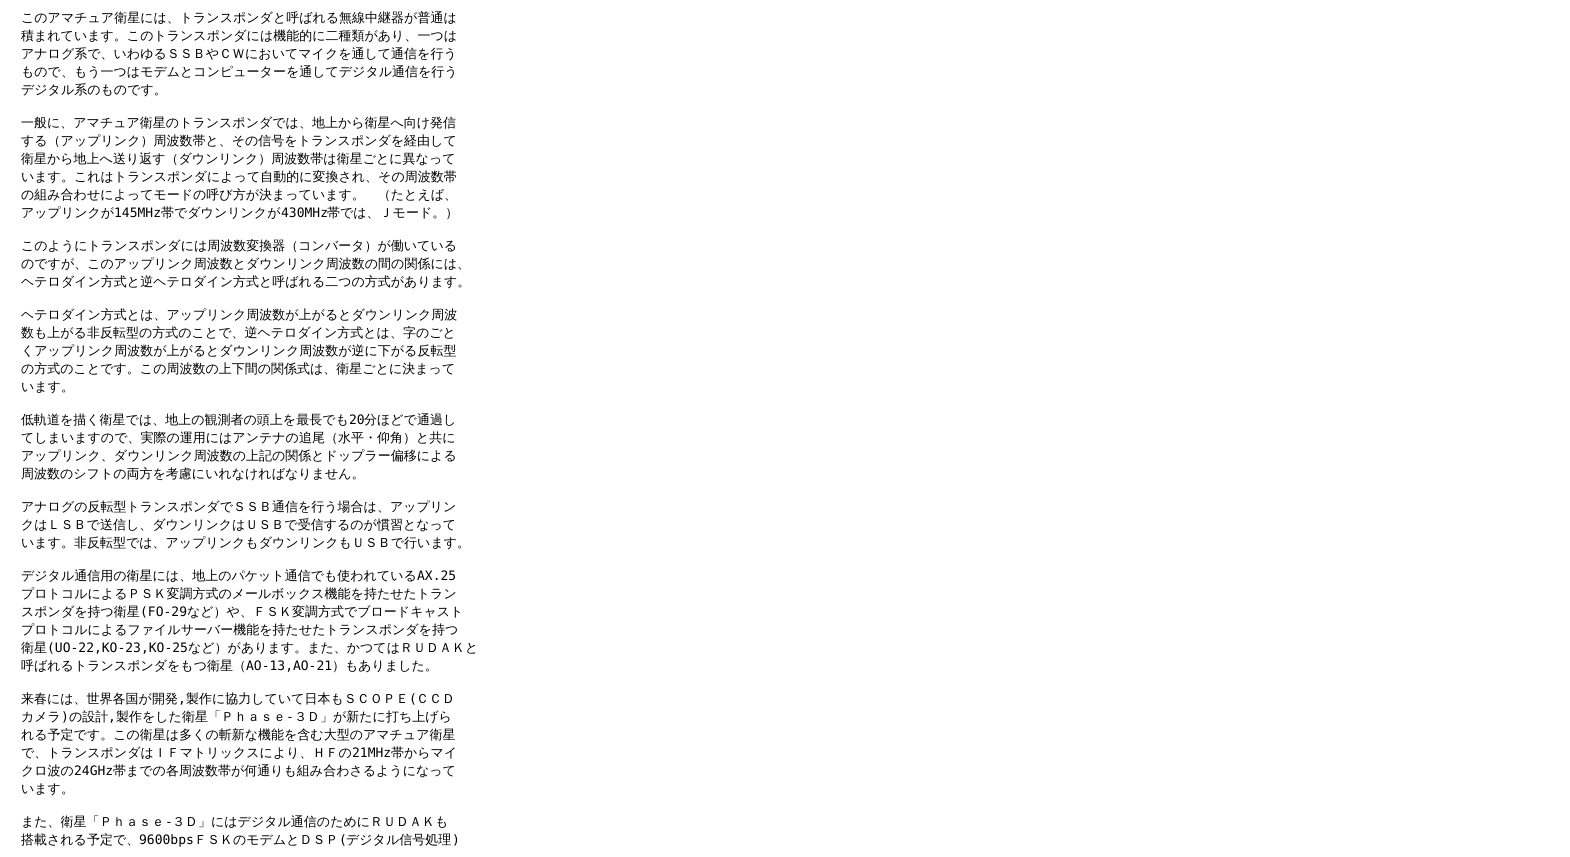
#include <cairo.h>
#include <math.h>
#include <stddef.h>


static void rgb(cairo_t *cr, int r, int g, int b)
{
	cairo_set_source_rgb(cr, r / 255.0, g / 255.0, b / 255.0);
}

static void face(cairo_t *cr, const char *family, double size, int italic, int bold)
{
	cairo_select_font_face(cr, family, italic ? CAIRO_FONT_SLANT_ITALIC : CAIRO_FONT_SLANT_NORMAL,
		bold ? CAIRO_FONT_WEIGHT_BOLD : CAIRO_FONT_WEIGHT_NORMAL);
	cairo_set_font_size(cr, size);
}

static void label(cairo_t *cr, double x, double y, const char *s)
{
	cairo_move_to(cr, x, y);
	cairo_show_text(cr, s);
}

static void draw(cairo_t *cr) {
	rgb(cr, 255, 255, 255);
	cairo_paint(cr);
	face(cr, "WenQuanYi Zen Hei Medium", 13, 0, 0);
	rgb(cr, 0, 0, 0);
	label(cr, 21, 22, "このアマチュア衛星には、トランスポンダと呼ばれる無線中継器が普通は");
	label(cr, 21, 40, "積まれています。このトランスポンダには機能的に二種類があり、一つは");
	label(cr, 21, 58, "アナログ系で、いわゆるＳＳＢやＣＷにおいてマイクを通して通信を行う");
	label(cr, 21, 76, "もので、もう一つはモデムとコンピューターを通してデジタル通信を行う");
	label(cr, 21, 94, "デジタル系のものです。");
	label(cr, 21, 127, "一般に、アマチュア衛星のトランスポンダでは、地上から衛星へ向け発信");
	label(cr, 21, 145, "する（アップリンク）周波数帯と、その信号をトランスポンダを経由して");
	label(cr, 21, 163, "衛星から地上へ送り返す（ダウンリンク）周波数帯は衛星ごとに異なって");
	label(cr, 21, 181, "います。これはトランスポンダによって自動的に変換され、その周波数帯");
	label(cr, 21, 199, "の組み合わせによってモードの呼び方が決まっています。　（たとえば、");
	label(cr, 21, 217, "アップリンクが");
	face(cr, "DejaVu Sans Mono", 13, 0, 0);
	label(cr, 114, 217, "145MHz");
	face(cr, "WenQuanYi Zen Hei Medium", 13, 0, 0);
	label(cr, 161, 217, "帯でダウンリンクが");
	face(cr, "DejaVu Sans Mono", 13, 0, 0);
	label(cr, 281, 217, "430MHz");
	face(cr, "WenQuanYi Zen Hei Medium", 13, 0, 0);
	label(cr, 327, 217, "帯では、Ｊモード。）");
	label(cr, 21, 250, "このようにトランスポンダには周波数変換器（コンバータ）が働いている");
	label(cr, 21, 268, "のですが、このアップリンク周波数とダウンリンク周波数の間の関係には、");
	label(cr, 21, 286, "ヘテロダイン方式と逆ヘテロダイン方式と呼ばれる二つの方式があります。");
	label(cr, 21, 319, "ヘテロダイン方式とは、アップリンク周波数が上がるとダウンリンク周波");
	label(cr, 21, 337, "数も上がる非反転型の方式のことで、逆ヘテロダイン方式とは、字のごと");
	label(cr, 21, 355, "くアップリンク周波数が上がるとダウンリンク周波数が逆に下がる反転型");
	label(cr, 21, 373, "の方式のことです。この周波数の上下間の関係式は、衛星ごとに決まって");
	label(cr, 21, 391, "います。");
	label(cr, 21, 424, "低軌道を描く衛星では、地上の観測者の頭上を最長でも");
	face(cr, "DejaVu Sans Mono", 13, 0, 0);
	label(cr, 349, 424, "20");
	face(cr, "WenQuanYi Zen Hei Medium", 13, 0, 0);
	label(cr, 364, 424, "分ほどで通過し");
	label(cr, 21, 442, "てしまいますので、実際の運用にはアンテナの追尾（水平・仰角）と共に");
	label(cr, 21, 460, "アップリンク、ダウンリンク周波数の上記の関係とドップラー偏移による");
	label(cr, 21, 478, "周波数のシフトの両方を考慮にいれなければなりません。");
	label(cr, 21, 511, "アナログの反転型トランスポンダでＳＳＢ通信を行う場合は、アップリン");
	label(cr, 21, 529, "クはＬＳＢで送信し、ダウンリンクはＵＳＢで受信するのが慣習となって");
	label(cr, 21, 547, "います。非反転型では、アップリンクもダウンリンクもＵＳＢで行います。");
	label(cr, 21, 580, "デジタル通信用の衛星には、地上のパケット通信でも使われている");
	face(cr, "DejaVu Sans Mono", 13, 0, 0);
	label(cr, 417, 580, "AX.25");
	face(cr, "WenQuanYi Zen Hei Medium", 13, 0, 0);
	label(cr, 21, 598, "プロトコルによるＰＳＫ変調方式のメールボックス機能を持たせたトラン");
	label(cr, 21, 616, "スポンダを持つ衛星");
	face(cr, "DejaVu Sans Mono", 13, 0, 0);
	label(cr, 140, 616, "(FO-29");
	face(cr, "WenQuanYi Zen Hei Medium", 13, 0, 0);
	label(cr, 187, 616, "など）や、ＦＳＫ変調方式でブロードキャスト");
	label(cr, 21, 634, "プロトコルによるファイルサーバー機能を持たせたトランスポンダを持つ");
	label(cr, 21, 652, "衛星");
	face(cr, "DejaVu Sans Mono", 13, 0, 0);
	label(cr, 47, 652, "(UO-22,KO-23,KO-25");
	face(cr, "WenQuanYi Zen Hei Medium", 13, 0, 0);
	label(cr, 188, 652, "など）があります。また、かつてはＲＵＤＡＫと");
	label(cr, 21, 670, "呼ばれるトランスポンダをもつ衛星（");
	face(cr, "DejaVu Sans Mono", 13, 0, 0);
	label(cr, 246, 670, "AO-13,AO-21");
	face(cr, "WenQuanYi Zen Hei Medium", 13, 0, 0);
	label(cr, 332, 670, "）もありました。");
	label(cr, 21, 703, "来春には、世界各国が開発");
	face(cr, "DejaVu Sans Mono", 13, 0, 0);
	label(cr, 178, 703, ",");
	face(cr, "WenQuanYi Zen Hei Medium", 13, 0, 0);
	label(cr, 186, 703, "製作に協力していて日本もＳＣＯＰＥ");
	face(cr, "DejaVu Sans Mono", 13, 0, 0);
	label(cr, 409, 703, "(");
	face(cr, "WenQuanYi Zen Hei Medium", 13, 0, 0);
	label(cr, 416, 703, "ＣＣＤ");
	label(cr, 21, 721, "カメラ");
	face(cr, "DejaVu Sans Mono", 13, 0, 0);
	label(cr, 61, 721, ")");
	face(cr, "WenQuanYi Zen Hei Medium", 13, 0, 0);
	label(cr, 69, 721, "の設計");
	label(cr, 116, 721, "製作をした衛星「Ｐｈａｓｅ");
	face(cr, "DejaVu Sans Mono", 13, 0, 0);
	label(cr, 286, 721, "-");
	face(cr, "WenQuanYi Zen Hei Medium", 13, 0, 0);
	label(cr, 294, 721, "３Ｄ」が新たに打ち上げら");
	face(cr, "DejaVu Sans Mono", 13, 0, 0);
	label(cr, 108, 721, ",");
	face(cr, "WenQuanYi Zen Hei Medium", 13, 0, 0);
	label(cr, 21, 739, "れる予定です。この衛星は多くの斬新な機能を含む大型のアマチュア衛星");
	label(cr, 21, 757, "で、トランスポンダはＩＦマトリックスにより、ＨＦの");
	face(cr, "DejaVu Sans Mono", 13, 0, 0);
	label(cr, 352, 757, "21MHz");
	face(cr, "WenQuanYi Zen Hei Medium", 13, 0, 0);
	label(cr, 391, 757, "帯からマイ");
	label(cr, 21, 775, "クロ波の");
	face(cr, "DejaVu Sans Mono", 13, 0, 0);
	label(cr, 74, 775, "24GHz");
	face(cr, "WenQuanYi Zen Hei Medium", 13, 0, 0);
	label(cr, 113, 775, "帯までの各周波数帯が何通りも組み合わさるようになって");
	label(cr, 21, 793, "います。");
	label(cr, 21, 826, "また、衛星「Ｐｈａｓｅ");
	face(cr, "DejaVu Sans Mono", 13, 0, 0);
	label(cr, 165, 826, "-");
	face(cr, "WenQuanYi Zen Hei Medium", 13, 0, 0);
	label(cr, 172, 826, "３Ｄ」にはデジタル通信のためにＲＵＤＡＫも");
	label(cr, 21, 844, "搭載される予定で、");
	face(cr, "DejaVu Sans Mono", 13, 0, 0);
	label(cr, 139, 844, "9600bps");
	face(cr, "WenQuanYi Zen Hei Medium", 13, 0, 0);
	label(cr, 194, 844, "ＦＳＫのモデムとＤＳＰ");
	face(cr, "DejaVu Sans Mono", 13, 0, 0);
	label(cr, 339, 844, "(");
	face(cr, "WenQuanYi Zen Hei Medium", 13, 0, 0);
	label(cr, 346, 844, "デジタル信号処理");
	face(cr, "DejaVu Sans Mono", 13, 0, 0);
	label(cr, 452, 844, ")");
}

int main(void) {
	cairo_surface_t *surface = cairo_image_surface_create(CAIRO_FORMAT_RGB24, 1570, 857);
	cairo_t *cr = cairo_create(surface);
	cairo_font_options_t *options = cairo_font_options_create();
	cairo_font_options_set_hint_metrics(options, CAIRO_HINT_METRICS_OFF);
	cairo_font_options_set_hint_style(options, CAIRO_HINT_STYLE_NONE);
	cairo_set_font_options(cr, options);
	cairo_set_miter_limit(cr, 4);
	draw(cr);
	cairo_surface_write_to_png(surface, "render.png");
	cairo_font_options_destroy(options);
	cairo_destroy(cr);
	cairo_surface_destroy(surface);
	return 0;
}
